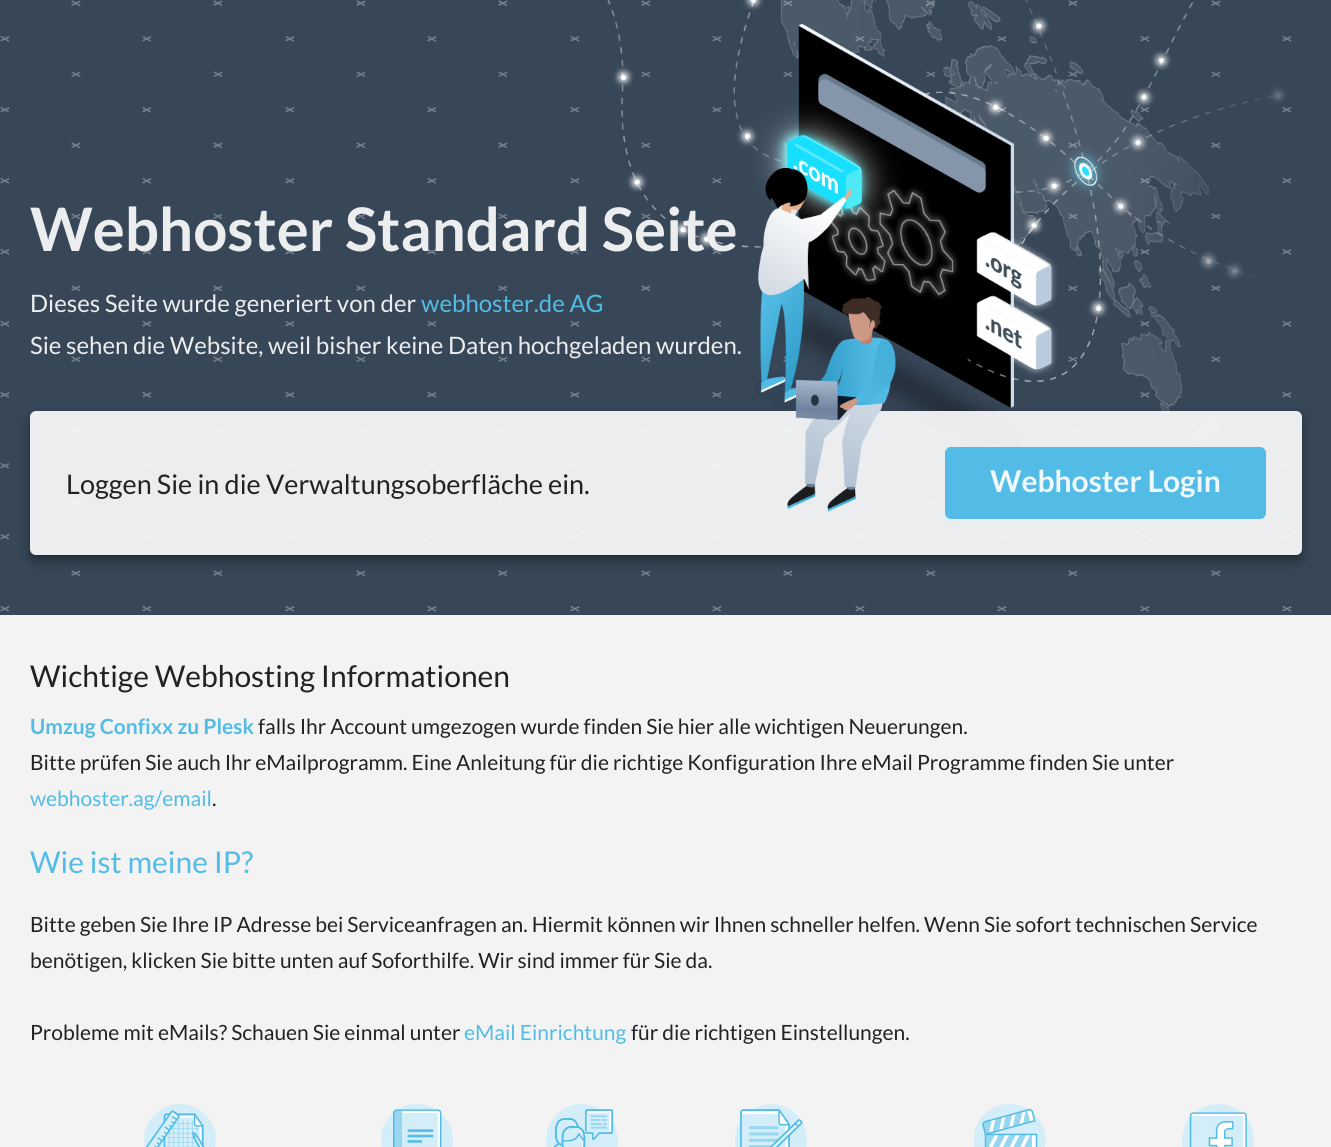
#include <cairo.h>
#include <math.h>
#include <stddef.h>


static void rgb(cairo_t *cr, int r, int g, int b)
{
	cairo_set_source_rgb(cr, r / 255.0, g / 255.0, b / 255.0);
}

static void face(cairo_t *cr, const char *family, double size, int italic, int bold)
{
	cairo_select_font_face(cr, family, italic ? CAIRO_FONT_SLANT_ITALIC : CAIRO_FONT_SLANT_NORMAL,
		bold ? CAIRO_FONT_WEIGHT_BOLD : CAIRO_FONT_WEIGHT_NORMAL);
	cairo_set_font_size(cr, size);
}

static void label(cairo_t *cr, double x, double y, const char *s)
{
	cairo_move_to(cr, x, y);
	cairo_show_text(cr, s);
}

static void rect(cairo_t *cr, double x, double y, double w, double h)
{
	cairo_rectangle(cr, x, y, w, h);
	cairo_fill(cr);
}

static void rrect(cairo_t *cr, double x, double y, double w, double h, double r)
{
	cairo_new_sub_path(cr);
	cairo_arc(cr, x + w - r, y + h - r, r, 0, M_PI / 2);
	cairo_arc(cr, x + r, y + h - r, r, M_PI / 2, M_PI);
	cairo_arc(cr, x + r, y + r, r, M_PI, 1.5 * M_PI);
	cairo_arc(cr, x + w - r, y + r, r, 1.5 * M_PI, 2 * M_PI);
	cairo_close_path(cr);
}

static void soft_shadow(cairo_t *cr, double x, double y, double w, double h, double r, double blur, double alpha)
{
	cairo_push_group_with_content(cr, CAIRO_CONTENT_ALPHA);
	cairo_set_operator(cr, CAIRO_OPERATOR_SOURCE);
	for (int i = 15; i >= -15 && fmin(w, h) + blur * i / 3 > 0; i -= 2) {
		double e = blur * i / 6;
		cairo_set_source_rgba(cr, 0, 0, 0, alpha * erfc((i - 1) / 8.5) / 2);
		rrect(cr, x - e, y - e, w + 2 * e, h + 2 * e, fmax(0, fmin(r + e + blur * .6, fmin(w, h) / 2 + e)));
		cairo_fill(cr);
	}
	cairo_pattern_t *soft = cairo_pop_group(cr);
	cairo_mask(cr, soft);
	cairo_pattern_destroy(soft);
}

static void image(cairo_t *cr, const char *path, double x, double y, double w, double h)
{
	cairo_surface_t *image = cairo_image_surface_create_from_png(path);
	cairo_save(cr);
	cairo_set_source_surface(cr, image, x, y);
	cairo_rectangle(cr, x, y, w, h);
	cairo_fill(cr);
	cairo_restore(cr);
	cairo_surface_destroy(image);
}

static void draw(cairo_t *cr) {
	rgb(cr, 243, 243, 243);
	cairo_paint(cr);
	rgb(cr, 55, 71, 88);
	rect(cr, 0, 0, 1331, 615);
	image(cr, "image0.png", 0, 0, 1292, 612);
	image(cr, "image1.png", 607, 0, 700, 447);
	face(cr, "Lato", 60, 0, 1);
	rgb(cr, 235, 237, 238);
	label(cr, 30, 251, "Webhoster Standard Seite");
	face(cr, "Lato", 24, 0, 0);
	label(cr, 30, 312, "Dieses Seite wurde generiert von der");
	rgb(cr, 83, 188, 230);
	label(cr, 421, 312, "webhoster.de AG");
	rgb(cr, 235, 237, 238);
	label(cr, 30, 354, "Sie sehen die Website, weil bisher keine Daten hochgeladen wurden.");
	cairo_save(cr);
	cairo_set_fill_rule(cr, CAIRO_FILL_RULE_EVEN_ODD);
	cairo_new_path(cr);
	cairo_move_to(cr, 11, 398);
	cairo_line_to(cr, 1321, 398);
	cairo_line_to(cr, 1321, 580);
	cairo_line_to(cr, 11, 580);
	cairo_close_path(cr);
	cairo_move_to(cr, 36, 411);
	cairo_line_to(cr, 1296, 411);
	cairo_curve_to(cr, 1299.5, 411, 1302, 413.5, 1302, 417);
	cairo_line_to(cr, 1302, 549);
	cairo_curve_to(cr, 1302, 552.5, 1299.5, 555, 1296, 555);
	cairo_line_to(cr, 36, 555);
	cairo_curve_to(cr, 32.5, 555, 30, 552.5, 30, 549);
	cairo_line_to(cr, 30, 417);
	cairo_curve_to(cr, 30, 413.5, 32.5, 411, 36, 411);
	cairo_close_path(cr);
	cairo_clip(cr);
	rgb(cr, 0, 0, 0);
	soft_shadow(cr, 30, 417, 1272, 144, 6, 6, 0.4);
	cairo_restore(cr);
	cairo_set_source_rgba(cr, 1, 1, 1, 0.9);
	rrect(cr, 30, 411, 1272, 144, 6);
	cairo_fill(cr);
	face(cr, "Lato", 27, 0, 0);
	rgb(cr, 34, 34, 34);
	label(cr, 66, 494, "Loggen Sie in die Verwaltungsoberfläche ein.");
	image(cr, "image2.png", 787, 297, 109, 215);
	rgb(cr, 83, 188, 230);
	rrect(cr, 945, 447, 321, 72, 6);
	cairo_fill(cr);
	face(cr, "Lato", 30, 0, 1);
	rgb(cr, 238, 248, 253);
	label(cr, 990, 492, "Webhoster Login");
	face(cr, "Lato", 30, 0, 0);
	rgb(cr, 34, 34, 34);
	label(cr, 30, 687, "Wichtige Webhosting Informationen");
	face(cr, "Lato", 21, 0, 1);
	rgb(cr, 83, 188, 230);
	label(cr, 30, 734, "Umzug Confixx zu Plesk");
	face(cr, "Lato", 21, 0, 0);
	rgb(cr, 34, 34, 34);
	label(cr, 258, 734, "falls Ihr Account umgezogen wurde finden Sie hier alle wichtigen Neuerungen.");
	label(cr, 30, 770, "Bitte prüfen Sie auch Ihr eMailprogramm. Eine Anleitung für die richtige Konfiguration Ihre eMail Programme finden Sie unter");
	rgb(cr, 83, 188, 230);
	label(cr, 30, 806, "webhoster.ag/email");
	rgb(cr, 34, 34, 34);
	label(cr, 212, 806, ".");
	face(cr, "Lato", 30, 0, 0);
	rgb(cr, 83, 188, 230);
	label(cr, 30, 873, "Wie ist meine IP?");
	face(cr, "Lato", 21, 0, 0);
	rgb(cr, 34, 34, 34);
	label(cr, 30, 932, "Bitte geben Sie Ihre IP Adresse bei Serviceanfragen an. Hiermit können wir Ihnen schneller helfen. Wenn Sie sofort technischen Service");
	label(cr, 30, 968, "benötigen, klicken Sie bitte unten auf Soforthilfe. Wir sind immer für Sie da.");
	label(cr, 30, 1040, "Probleme mit eMails? Schauen Sie einmal unter");
	rgb(cr, 83, 188, 230);
	label(cr, 464, 1040, "eMail Einrichtung");
	rgb(cr, 34, 34, 34);
	label(cr, 631, 1040, "für die richtigen Einstellungen.");
	image(cr, "image3.png", 144, 1104, 72, 43);
	image(cr, "image4.png", 381, 1104, 72, 43);
	image(cr, "image5.png", 546, 1104, 72, 43);
	image(cr, "image6.png", 735, 1104, 72, 43);
	image(cr, "image7.png", 974, 1104, 72, 43);
	image(cr, "image8.png", 1182, 1104, 72, 43);
}

int main(void) {
	cairo_surface_t *surface = cairo_image_surface_create(CAIRO_FORMAT_RGB24, 1331, 1147);
	cairo_t *cr = cairo_create(surface);
	cairo_font_options_t *options = cairo_font_options_create();
	cairo_font_options_set_hint_metrics(options, CAIRO_HINT_METRICS_OFF);
	cairo_font_options_set_hint_style(options, CAIRO_HINT_STYLE_NONE);
	cairo_set_font_options(cr, options);
	cairo_set_miter_limit(cr, 4);
	draw(cr);
	cairo_surface_write_to_png(surface, "render.png");
	cairo_font_options_destroy(options);
	cairo_destroy(cr);
	cairo_surface_destroy(surface);
	return 0;
}
